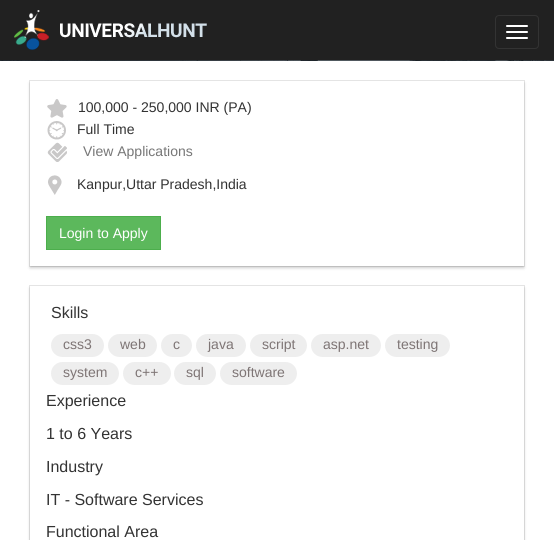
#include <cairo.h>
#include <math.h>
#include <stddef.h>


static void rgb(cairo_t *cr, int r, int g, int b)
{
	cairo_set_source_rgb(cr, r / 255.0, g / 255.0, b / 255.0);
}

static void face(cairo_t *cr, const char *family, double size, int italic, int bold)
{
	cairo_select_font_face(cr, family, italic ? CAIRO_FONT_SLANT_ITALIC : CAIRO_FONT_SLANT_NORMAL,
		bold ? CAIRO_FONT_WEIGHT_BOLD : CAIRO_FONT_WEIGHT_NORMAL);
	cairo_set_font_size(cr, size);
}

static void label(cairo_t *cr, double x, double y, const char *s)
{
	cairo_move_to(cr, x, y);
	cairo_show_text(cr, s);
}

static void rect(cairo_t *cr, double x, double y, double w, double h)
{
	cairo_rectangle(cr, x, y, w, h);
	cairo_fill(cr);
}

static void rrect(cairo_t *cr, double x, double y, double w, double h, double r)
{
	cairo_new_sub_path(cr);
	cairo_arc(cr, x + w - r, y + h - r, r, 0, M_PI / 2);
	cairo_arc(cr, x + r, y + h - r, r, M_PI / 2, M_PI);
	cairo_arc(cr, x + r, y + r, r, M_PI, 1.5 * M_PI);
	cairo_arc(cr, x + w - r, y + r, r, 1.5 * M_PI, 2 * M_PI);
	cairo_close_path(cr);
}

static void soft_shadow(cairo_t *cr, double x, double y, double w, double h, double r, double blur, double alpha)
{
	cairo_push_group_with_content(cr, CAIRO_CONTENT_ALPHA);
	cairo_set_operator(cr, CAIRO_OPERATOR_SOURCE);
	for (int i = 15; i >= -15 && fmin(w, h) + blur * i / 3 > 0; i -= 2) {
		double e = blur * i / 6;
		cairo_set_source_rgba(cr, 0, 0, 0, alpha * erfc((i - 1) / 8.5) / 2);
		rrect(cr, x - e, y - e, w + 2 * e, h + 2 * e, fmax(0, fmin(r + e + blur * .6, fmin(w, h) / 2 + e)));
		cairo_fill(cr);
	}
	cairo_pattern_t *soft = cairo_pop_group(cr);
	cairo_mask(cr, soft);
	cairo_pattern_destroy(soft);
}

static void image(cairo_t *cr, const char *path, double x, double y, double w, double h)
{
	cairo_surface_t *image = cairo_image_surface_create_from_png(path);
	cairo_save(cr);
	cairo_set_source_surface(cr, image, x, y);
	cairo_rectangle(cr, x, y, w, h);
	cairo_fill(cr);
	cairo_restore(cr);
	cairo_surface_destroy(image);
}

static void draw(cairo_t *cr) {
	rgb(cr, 255, 255, 255);
	cairo_paint(cr);
	rgb(cr, 33, 33, 33);
	rect(cr, 0, 0, 554, 60);
	image(cr, "image0.png", 14, 10, 193, 40);
	rrect(cr, 495.5, 15.5, 43, 33, 3.5);
	rgb(cr, 51, 51, 51);
	cairo_set_line_width(cr, 1);
	cairo_stroke(cr);
	rgb(cr, 255, 255, 255);
	rrect(cr, 506, 25, 22, 2, 1);
	cairo_fill(cr);
	rrect(cr, 506, 31, 22, 2, 1);
	cairo_fill(cr);
	rrect(cr, 506, 37, 22, 2, 1);
	cairo_fill(cr);
	image(cr, "image1.png", 0, 60, 554, 1);
	cairo_save(cr);
	cairo_set_fill_rule(cr, CAIRO_FILL_RULE_EVEN_ODD);
	cairo_new_path(cr);
	cairo_move_to(cr, 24, 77);
	cairo_line_to(cr, 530, 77);
	cairo_line_to(cr, 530, 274);
	cairo_line_to(cr, 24, 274);
	cairo_close_path(cr);
	cairo_move_to(cr, 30, 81);
	cairo_line_to(cr, 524, 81);
	cairo_line_to(cr, 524, 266);
	cairo_line_to(cr, 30, 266);
	cairo_close_path(cr);
	cairo_clip(cr);
	rgb(cr, 0, 0, 0);
	soft_shadow(cr, 30, 83, 494, 185, 0, 1.5, 0.2);
	cairo_restore(cr);
	cairo_rectangle(cr, 29.5, 80.5, 495, 186);
	cairo_set_source_rgba(cr, 0, 0, 0, 0.1);
	cairo_stroke(cr);
	image(cr, "image2.png", 47, 99, 20, 19);
	face(cr, "Arimo", 14, 0, 0);
	rgb(cr, 51, 51, 51);
	label(cr, 78, 112, "100,000 - 250,000 INR (PA)");
	image(cr, "image3.png", 47, 121, 19, 19);
	label(cr, 77, 134, "Full Time");
	image(cr, "image4.png", 47, 142, 20, 20);
	rgb(cr, 119, 119, 119);
	label(cr, 83, 156, "View Applications");
	image(cr, "image5.png", 48, 175, 14, 20);
	rgb(cr, 51, 51, 51);
	label(cr, 77, 189, "Kanpur,Uttar Pradesh,India");
	rgb(cr, 92, 184, 92);
	cairo_rectangle(cr, 46.5, 216.5, 114, 33);
	cairo_fill_preserve(cr);
	rgb(cr, 76, 174, 76);
	cairo_stroke(cr);
	rgb(cr, 255, 255, 255);
	label(cr, 59, 238, "Login to Apply");
	cairo_save(cr);
	cairo_set_fill_rule(cr, CAIRO_FILL_RULE_EVEN_ODD);
	cairo_new_path(cr);
	cairo_move_to(cr, 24, 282);
	cairo_line_to(cr, 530, 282);
	cairo_line_to(cr, 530, 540);
	cairo_line_to(cr, 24, 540);
	cairo_close_path(cr);
	cairo_move_to(cr, 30, 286);
	cairo_line_to(cr, 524, 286);
	cairo_line_to(cr, 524, 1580);
	cairo_line_to(cr, 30, 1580);
	cairo_close_path(cr);
	cairo_clip(cr);
	rgb(cr, 0, 0, 0);
	soft_shadow(cr, 30, 288, 494, 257, 0, 1.5, 0.2);
	cairo_restore(cr);
	cairo_rectangle(cr, 29.5, 285.5, 495, 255);
	cairo_set_source_rgba(cr, 0, 0, 0, 0.1);
	cairo_stroke(cr);
	face(cr, "Arimo", 16, 0, 0);
	rgb(cr, 51, 51, 51);
	label(cr, 51, 318, "Skills");
	rgb(cr, 238, 238, 238);
	rrect(cr, 51, 334, 53, 23, 11.5);
	cairo_fill(cr);
	face(cr, "Arimo", 14, 0, 0);
	rgb(cr, 126, 117, 117);
	label(cr, 63, 349, "css3");
	rgb(cr, 238, 238, 238);
	rrect(cr, 108, 334, 49, 23, 11.5);
	cairo_fill(cr);
	rgb(cr, 126, 117, 117);
	label(cr, 120, 349, "web");
	rgb(cr, 238, 238, 238);
	rrect(cr, 161, 334, 31, 23, 11.5);
	cairo_fill(cr);
	rgb(cr, 126, 117, 117);
	label(cr, 173, 349, "c");
	rgb(cr, 238, 238, 238);
	rrect(cr, 196, 334, 50, 23, 11.5);
	cairo_fill(cr);
	rgb(cr, 126, 117, 117);
	label(cr, 208, 349, "java");
	rgb(cr, 238, 238, 238);
	rrect(cr, 250, 334, 57, 23, 11.5);
	cairo_fill(cr);
	rgb(cr, 126, 117, 117);
	label(cr, 262, 349, "script");
	rgb(cr, 238, 238, 238);
	rrect(cr, 311, 334, 70, 23, 11.5);
	cairo_fill(cr);
	rgb(cr, 126, 117, 117);
	label(cr, 323, 349, "asp.net");
	rgb(cr, 238, 238, 238);
	rrect(cr, 385, 334, 65, 23, 11.5);
	cairo_fill(cr);
	rgb(cr, 126, 117, 117);
	label(cr, 397, 349, "testing");
	rgb(cr, 238, 238, 238);
	rrect(cr, 51, 362, 68, 23, 11.5);
	cairo_fill(cr);
	rgb(cr, 126, 117, 117);
	label(cr, 63, 377, "system");
	rgb(cr, 238, 238, 238);
	rrect(cr, 123, 362, 48, 23, 11.5);
	cairo_fill(cr);
	rgb(cr, 126, 117, 117);
	label(cr, 135, 377, "c++");
	rgb(cr, 238, 238, 238);
	rrect(cr, 174, 362, 42, 23, 11.5);
	cairo_fill(cr);
	rgb(cr, 126, 117, 117);
	label(cr, 186, 377, "sql");
	rgb(cr, 238, 238, 238);
	rrect(cr, 220, 362, 77, 23, 11.5);
	cairo_fill(cr);
	rgb(cr, 126, 117, 117);
	label(cr, 232, 377, "software");
	face(cr, "Arimo", 16, 0, 0);
	rgb(cr, 51, 51, 51);
	label(cr, 46, 406, "Experience");
	label(cr, 46, 439, "1 to 6 Years");
	label(cr, 46, 472, "Industry");
	label(cr, 46, 505, "IT - Software Services");
	label(cr, 46, 537, "Functional Area");
}

int main(void) {
	cairo_surface_t *surface = cairo_image_surface_create(CAIRO_FORMAT_RGB24, 554, 540);
	cairo_t *cr = cairo_create(surface);
	cairo_font_options_t *options = cairo_font_options_create();
	cairo_font_options_set_hint_metrics(options, CAIRO_HINT_METRICS_OFF);
	cairo_font_options_set_hint_style(options, CAIRO_HINT_STYLE_NONE);
	cairo_set_font_options(cr, options);
	cairo_set_miter_limit(cr, 4);
	draw(cr);
	cairo_surface_write_to_png(surface, "render.png");
	cairo_font_options_destroy(options);
	cairo_destroy(cr);
	cairo_surface_destroy(surface);
	return 0;
}
